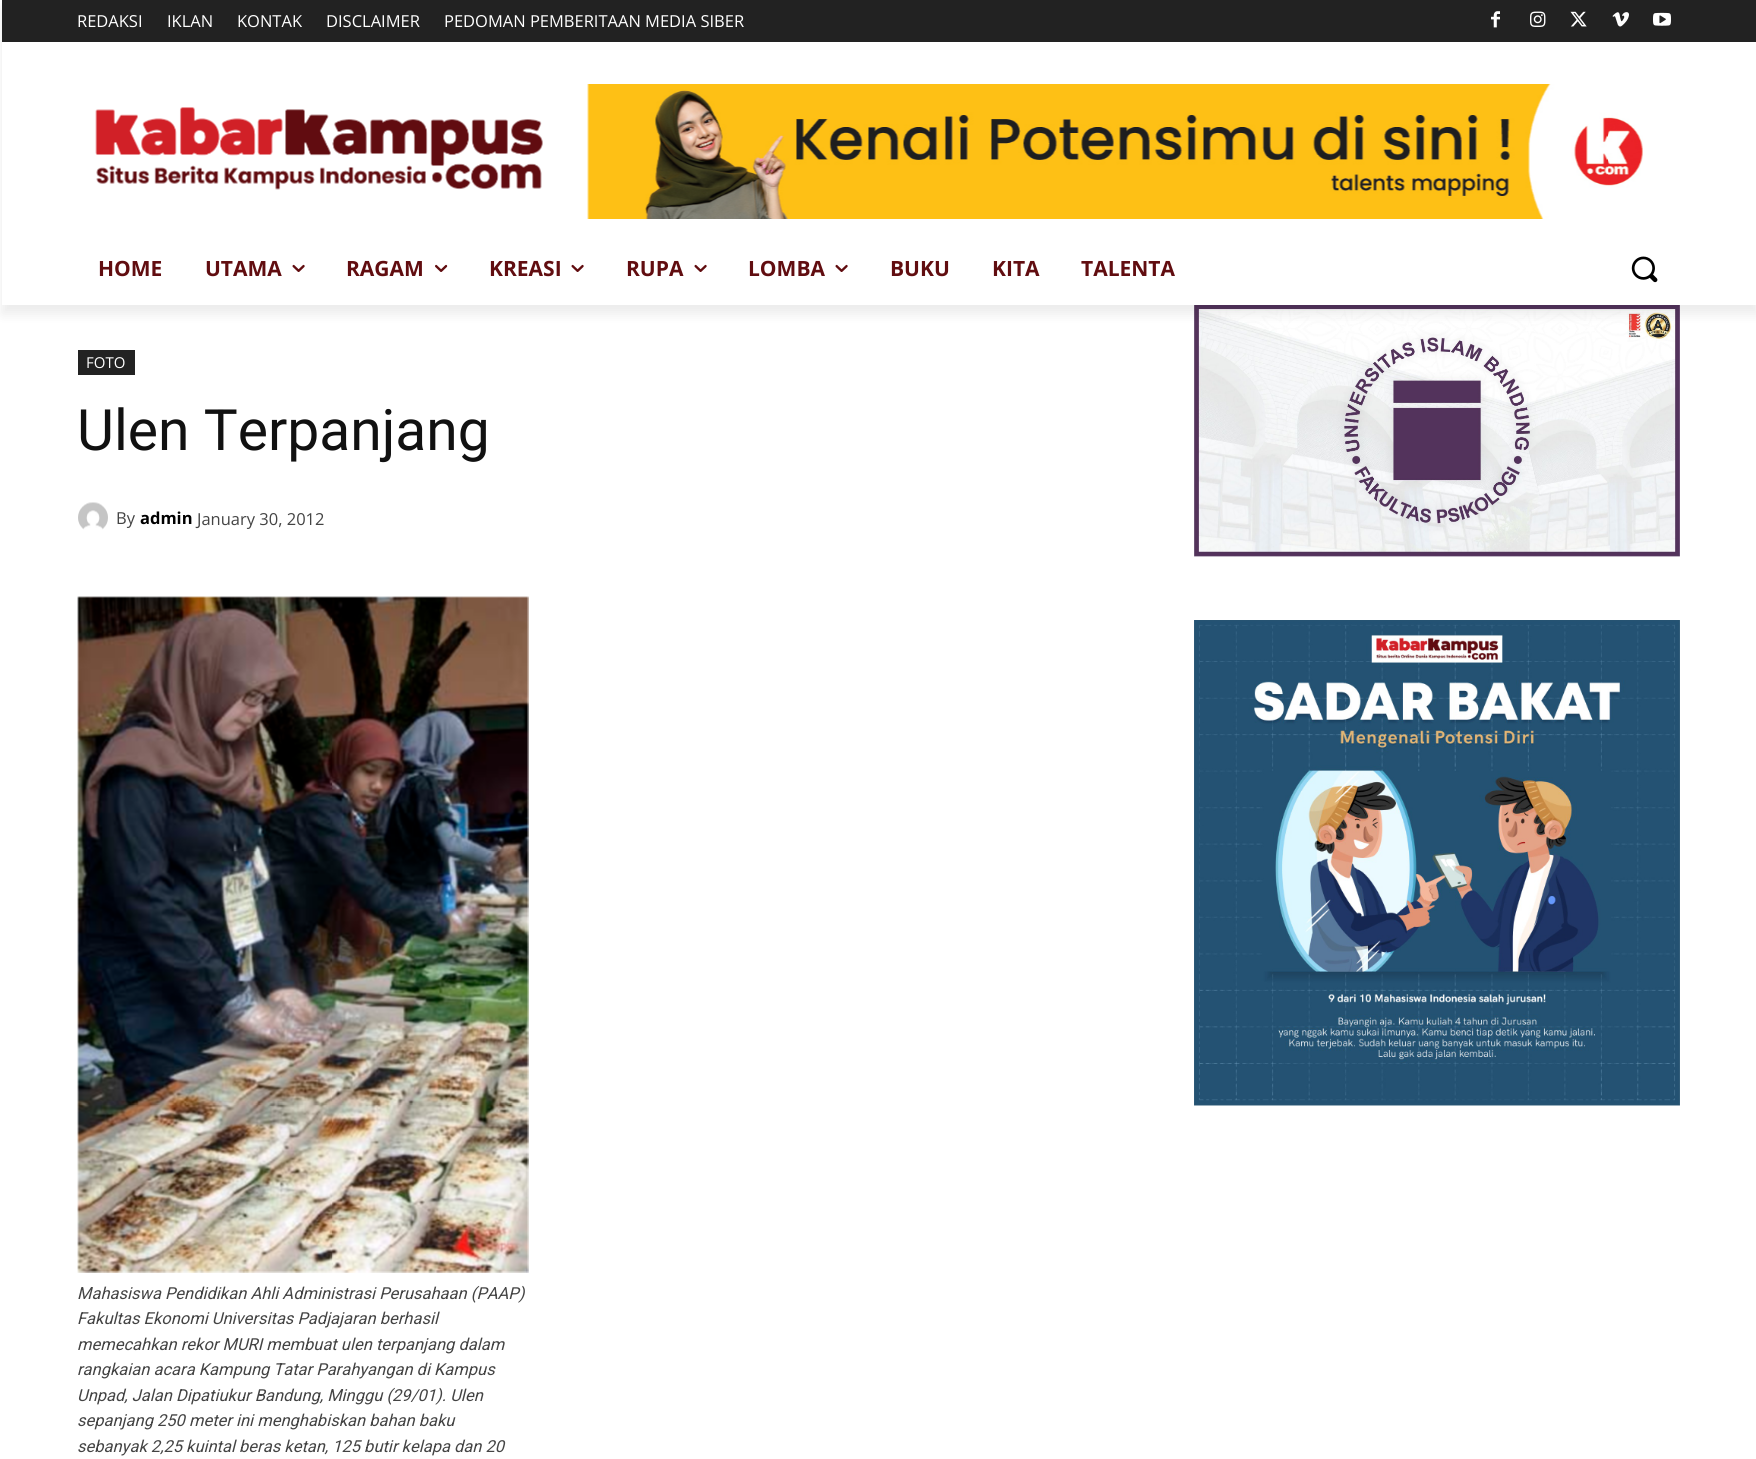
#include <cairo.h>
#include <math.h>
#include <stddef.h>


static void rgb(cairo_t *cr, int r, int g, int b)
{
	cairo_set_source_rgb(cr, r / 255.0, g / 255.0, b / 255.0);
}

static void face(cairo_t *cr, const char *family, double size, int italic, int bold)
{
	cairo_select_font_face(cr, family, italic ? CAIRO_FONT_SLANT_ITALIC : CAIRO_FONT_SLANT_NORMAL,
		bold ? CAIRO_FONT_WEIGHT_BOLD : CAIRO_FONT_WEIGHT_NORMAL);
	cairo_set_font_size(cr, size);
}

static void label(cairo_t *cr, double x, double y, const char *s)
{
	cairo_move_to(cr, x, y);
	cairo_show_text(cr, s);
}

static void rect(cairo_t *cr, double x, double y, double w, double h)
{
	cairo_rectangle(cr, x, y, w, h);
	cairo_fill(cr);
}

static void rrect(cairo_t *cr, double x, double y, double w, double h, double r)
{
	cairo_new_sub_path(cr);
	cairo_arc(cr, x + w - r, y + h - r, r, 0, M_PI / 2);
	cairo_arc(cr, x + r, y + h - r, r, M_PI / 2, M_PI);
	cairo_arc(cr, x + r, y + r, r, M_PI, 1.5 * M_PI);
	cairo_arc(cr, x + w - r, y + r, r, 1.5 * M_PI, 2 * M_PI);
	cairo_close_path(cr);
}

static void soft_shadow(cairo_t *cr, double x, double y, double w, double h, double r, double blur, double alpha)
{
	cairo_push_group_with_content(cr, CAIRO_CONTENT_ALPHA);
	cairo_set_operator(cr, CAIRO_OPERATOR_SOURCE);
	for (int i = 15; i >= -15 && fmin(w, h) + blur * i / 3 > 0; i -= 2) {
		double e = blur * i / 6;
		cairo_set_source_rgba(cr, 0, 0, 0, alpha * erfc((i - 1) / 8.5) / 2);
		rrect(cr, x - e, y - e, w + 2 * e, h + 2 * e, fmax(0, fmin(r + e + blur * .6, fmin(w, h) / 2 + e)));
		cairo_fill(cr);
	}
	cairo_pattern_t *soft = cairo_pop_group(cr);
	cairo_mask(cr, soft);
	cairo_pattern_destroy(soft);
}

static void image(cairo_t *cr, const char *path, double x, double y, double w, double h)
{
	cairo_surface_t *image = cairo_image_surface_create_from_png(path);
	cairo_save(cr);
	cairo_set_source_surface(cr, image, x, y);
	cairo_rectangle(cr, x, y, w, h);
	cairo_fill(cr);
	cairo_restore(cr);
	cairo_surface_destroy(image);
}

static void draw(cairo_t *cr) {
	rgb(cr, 255, 255, 255);
	cairo_paint(cr);
	rgb(cr, 34, 34, 34);
	rect(cr, 2, 0, 1754, 42);
	image(cr, "image0.png", 1491, 11, 9, 17);
	image(cr, "image1.png", 1530, 11, 16, 16);
	image(cr, "image2.png", 1570, 11, 17, 16);
	image(cr, "image3.png", 1612, 12, 17, 15);
	image(cr, "image4.png", 1653, 12, 18, 14);
	image(cr, "image5.png", 95, 107, 448, 83);
	image(cr, "image6.png", 587, 84, 1056, 135);
	image(cr, "image12.png", 1194, 305, 486, 252);
	cairo_save(cr);
	cairo_set_fill_rule(cr, CAIRO_FILL_RULE_EVEN_ODD);
	cairo_new_path(cr);
	cairo_move_to(cr, 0, 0);
	cairo_line_to(cr, 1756, 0);
	cairo_line_to(cr, 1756, 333);
	cairo_line_to(cr, 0, 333);
	cairo_close_path(cr);
	cairo_move_to(cr, 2, 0);
	cairo_line_to(cr, 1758, 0);
	cairo_line_to(cr, 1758, 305);
	cairo_line_to(cr, 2, 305);
	cairo_close_path(cr);
	cairo_clip(cr);
	rgb(cr, 0, 0, 0);
	soft_shadow(cr, 2, 9, 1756, 305, 0, 6, 0.08);
	cairo_restore(cr);
	face(cr, "Open Sans", 16.5, 0, 0);
	rgb(cr, 255, 255, 255);
	label(cr, 77, 27, "REDAKSI");
	label(cr, 167, 27, "IKLAN");
	label(cr, 237, 27, "KONTAK");
	label(cr, 326, 27, "DISCLAIMER");
	label(cr, 444, 27, "PEDOMAN PEMBERITAAN MEDIA SIBER");
	face(cr, "Open Sans", 21, 0, 1);
	rgb(cr, 97, 13, 16);
	label(cr, 98, 276, "HOME");
	label(cr, 205, 276, "UTAMA");
	image(cr, "image7.png", 292, 264, 13, 8);
	label(cr, 346, 276, "RAGAM");
	image(cr, "image8.png", 435, 264, 13, 8);
	label(cr, 489, 276, "KREASI");
	image(cr, "image7.png", 571, 264, 13, 8);
	label(cr, 626, 276, "RUPA");
	image(cr, "image7.png", 694, 264, 13, 8);
	label(cr, 748, 276, "LOMBA");
	image(cr, "image7.png", 835, 264, 13, 8);
	label(cr, 890, 276, "BUKU");
	label(cr, 992, 276, "KITA");
	label(cr, 1081, 276, "TALENTA");
	image(cr, "image9.png", 1631, 256, 27, 27);
	rgb(cr, 34, 34, 34);
	rect(cr, 78, 350, 57, 25);
	face(cr, "Open Sans", 15, 0, 0);
	rgb(cr, 255, 255, 255);
	label(cr, 86, 368, "FOTO");
	face(cr, "Roboto", 57, 0, 0);
	rgb(cr, 17, 17, 17);
	label(cr, 77, 450, "Ulen Terpanjang");
	image(cr, "image10.png", 78, 502, 30, 28);
	face(cr, "Open Sans", 16.5, 0, 0);
	rgb(cr, 68, 68, 68);
	label(cr, 116, 524, "By");
	face(cr, "Open Sans", 16.5, 0, 1);
	rgb(cr, 0, 0, 0);
	label(cr, 140, 524, "admin");
	face(cr, "Open Sans", 16.5, 0, 0);
	rgb(cr, 68, 68, 68);
	label(cr, 197, 525, "January 30, 2012");
	image(cr, "image11.png", 77, 596, 452, 677);
	face(cr, "Roboto", 16.5, 1, 0);
	label(cr, 77, 1299, "Mahasiswa Pendidikan Ahli Administrasi Perusahaan (PAAP)");
	label(cr, 77, 1324, "Fakultas Ekonomi Universitas Padjajaran berhasil");
	label(cr, 77, 1350, "memecahkan rekor MURI membuat ulen terpanjang dalam");
	label(cr, 77, 1375, "rangkaian acara Kampung Tatar Parahyangan di Kampus");
	label(cr, 77, 1401, "Unpad, Jalan Dipatiukur Bandung, Minggu (29/01). Ulen");
	label(cr, 77, 1426, "sepanjang 250 meter ini menghabiskan bahan baku");
	label(cr, 77, 1452, "sebanyak 2,25 kuintal beras ketan, 125 butir kelapa dan 20");
	image(cr, "image13.png", 1194, 620, 486, 486);
}

int main(void) {
	cairo_surface_t *surface = cairo_image_surface_create(CAIRO_FORMAT_RGB24, 1756, 1459);
	cairo_t *cr = cairo_create(surface);
	cairo_font_options_t *options = cairo_font_options_create();
	cairo_font_options_set_hint_metrics(options, CAIRO_HINT_METRICS_OFF);
	cairo_font_options_set_hint_style(options, CAIRO_HINT_STYLE_NONE);
	cairo_set_font_options(cr, options);
	cairo_set_miter_limit(cr, 4);
	draw(cr);
	cairo_surface_write_to_png(surface, "render.png");
	cairo_font_options_destroy(options);
	cairo_destroy(cr);
	cairo_surface_destroy(surface);
	return 0;
}
